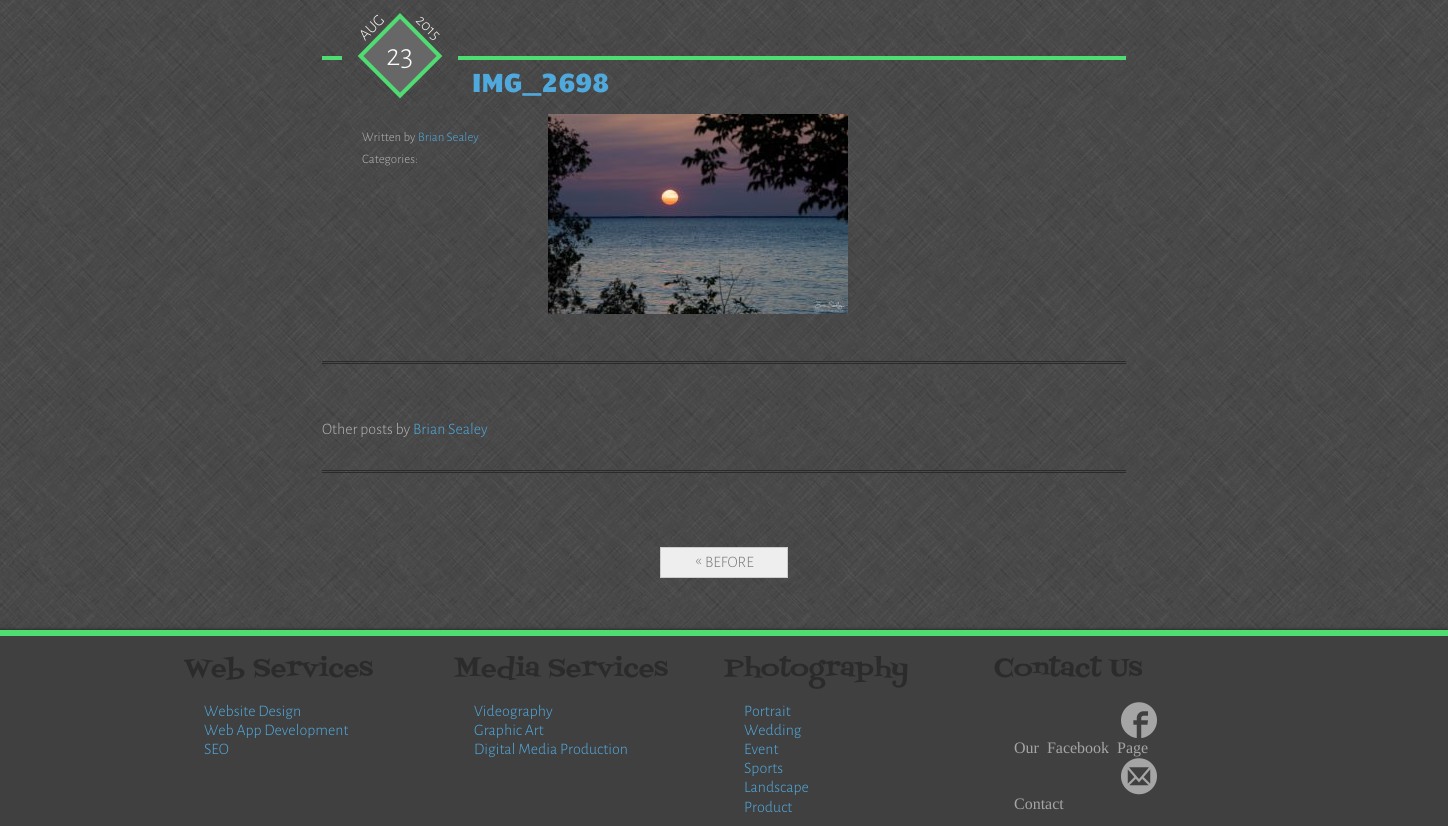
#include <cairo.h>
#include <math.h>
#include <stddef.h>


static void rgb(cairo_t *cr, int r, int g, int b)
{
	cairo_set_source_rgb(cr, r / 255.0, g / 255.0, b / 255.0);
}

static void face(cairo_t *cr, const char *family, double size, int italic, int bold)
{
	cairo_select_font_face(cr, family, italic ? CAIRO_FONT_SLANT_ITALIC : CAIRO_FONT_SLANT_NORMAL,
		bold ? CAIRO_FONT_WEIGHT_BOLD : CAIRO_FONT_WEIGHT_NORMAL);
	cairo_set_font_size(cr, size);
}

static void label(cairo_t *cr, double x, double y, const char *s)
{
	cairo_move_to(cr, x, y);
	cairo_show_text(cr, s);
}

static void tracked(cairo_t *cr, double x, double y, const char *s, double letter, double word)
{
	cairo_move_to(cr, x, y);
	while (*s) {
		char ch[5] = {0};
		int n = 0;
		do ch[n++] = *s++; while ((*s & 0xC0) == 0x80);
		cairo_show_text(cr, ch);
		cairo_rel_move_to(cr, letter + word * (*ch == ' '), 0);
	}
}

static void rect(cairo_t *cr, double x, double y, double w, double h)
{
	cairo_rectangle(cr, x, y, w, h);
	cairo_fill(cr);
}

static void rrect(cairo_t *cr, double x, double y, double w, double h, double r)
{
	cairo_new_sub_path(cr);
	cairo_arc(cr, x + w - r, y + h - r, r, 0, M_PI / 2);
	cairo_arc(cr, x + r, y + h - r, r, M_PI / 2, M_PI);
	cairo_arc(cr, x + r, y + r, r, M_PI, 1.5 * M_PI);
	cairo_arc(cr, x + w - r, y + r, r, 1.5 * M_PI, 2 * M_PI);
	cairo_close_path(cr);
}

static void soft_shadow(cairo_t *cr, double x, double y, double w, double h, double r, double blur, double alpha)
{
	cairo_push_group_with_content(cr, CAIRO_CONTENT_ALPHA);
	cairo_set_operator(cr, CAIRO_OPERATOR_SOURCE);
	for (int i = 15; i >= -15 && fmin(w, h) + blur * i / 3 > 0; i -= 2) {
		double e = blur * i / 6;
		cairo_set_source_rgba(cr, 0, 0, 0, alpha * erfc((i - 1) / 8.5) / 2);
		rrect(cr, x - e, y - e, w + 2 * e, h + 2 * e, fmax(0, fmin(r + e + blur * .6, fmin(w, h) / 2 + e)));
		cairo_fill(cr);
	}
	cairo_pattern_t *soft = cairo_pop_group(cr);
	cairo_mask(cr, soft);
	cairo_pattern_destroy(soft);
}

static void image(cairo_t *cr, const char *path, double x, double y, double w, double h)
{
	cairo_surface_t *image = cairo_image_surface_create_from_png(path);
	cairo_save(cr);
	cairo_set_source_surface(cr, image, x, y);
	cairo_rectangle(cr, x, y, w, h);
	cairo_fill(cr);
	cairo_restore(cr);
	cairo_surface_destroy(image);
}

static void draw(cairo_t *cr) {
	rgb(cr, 255, 255, 255);
	cairo_paint(cr);
	image(cr, "image0.png", 0, 0, 1448, 630);
	rgb(cr, 79, 220, 112);
	rect(cr, 322, 56, 804, 4);
	image(cr, "image1.png", 342, 30, 116, 76);
	face(cr, "Alegreya Sans Light", 16, 0, 0);
	rgb(cr, 251, 251, 249);
	cairo_save(cr);
	cairo_translate(cr, 365, 41);
	cairo_rotate(cr, -45 * M_PI / 180);
	label(cr, 0, 0, "AUG");
	cairo_restore(cr);
	rgb(cr, 103, 103, 103);
	cairo_new_path(cr);
	cairo_move_to(cr, 358, 56);
	cairo_line_to(cr, 400, 13);
	cairo_line_to(cr, 442, 56);
	cairo_line_to(cr, 400, 98);
	cairo_close_path(cr);
	cairo_fill(cr);
	cairo_new_path(cr);
	cairo_move_to(cr, 360.5, 56);
	cairo_line_to(cr, 400, 16);
	cairo_line_to(cr, 439.5, 56);
	cairo_line_to(cr, 400, 95.5);
	cairo_close_path(cr);
	rgb(cr, 79, 220, 112);
	cairo_set_line_width(cr, 4);
	cairo_stroke(cr);
	rgb(cr, 251, 251, 249);
	cairo_save(cr);
	cairo_translate(cr, 415, 21);
	cairo_rotate(cr, 45 * M_PI / 180);
	label(cr, 0, 0, "2015");
	cairo_restore(cr);
	face(cr, "Alegreya Sans Light", 32, 0, 0);
	label(cr, 386, 65, "23");
	face(cr, "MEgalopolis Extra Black", 26, 0, 0);
	rgb(cr, 80, 169, 221);
	label(cr, 472, 92, "IMG_2698");
	face(cr, "Alegreya Sans Light", 13, 0, 0);
	rgb(cr, 178, 178, 178);
	label(cr, 362, 141, "Written by");
	rgb(cr, 80, 169, 221);
	label(cr, 418, 141, "Brian Sealey");
	rgb(cr, 178, 178, 178);
	label(cr, 362, 163, "Categories:");
	image(cr, "image2.png", 548, 114, 300, 200);
	rgb(cr, 43, 43, 43);
	rect(cr, 322, 361, 804, 1);
	rect(cr, 322, 363, 804, 1);
	image(cr, "image3.png", 709, 364, 30, 12);
	face(cr, "Alegreya Sans Light", 16, 0, 0);
	rgb(cr, 178, 178, 178);
	label(cr, 322, 434, "Other posts by");
	rgb(cr, 80, 169, 221);
	label(cr, 413, 434, "Brian Sealey");
	rgb(cr, 43, 43, 43);
	rect(cr, 322, 470, 804, 1);
	rect(cr, 322, 472, 804, 1);
	image(cr, "image3.png", 709, 473, 30, 12);
	rgb(cr, 238, 238, 238);
	cairo_rectangle(cr, 660.5, 547.5, 127, 30);
	cairo_fill_preserve(cr);
	rgb(cr, 204, 204, 204);
	cairo_set_line_width(cr, 1);
	cairo_stroke(cr);
	rgb(cr, 122, 122, 122);
	label(cr, 695, 565, "«");
	label(cr, 705, 567, "BEFORE");
	rgb(cr, 43, 43, 43);
	soft_shadow(cr, 0, 629, 1448, 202, 0, 1.5, 1);
	rgb(cr, 64, 64, 64);
	rect(cr, 0, 636, 1448, 190);
	rgb(cr, 79, 220, 112);
	rect(cr, 0, 630, 1448, 6);
	cairo_save(cr);
	cairo_rectangle(cr, 184, 656, 270, 103);
	cairo_clip(cr);
	face(cr, "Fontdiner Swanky", 26, 0, 0);
	rgb(cr, 43, 43, 43);
	label(cr, 184, 676, "Web Services");
	cairo_restore(cr);
	rgb(cr, 80, 169, 221);
	label(cr, 204, 716, "Website Design");
	label(cr, 204, 735, "Web App Development");
	label(cr, 204, 754, "SEO");
	cairo_save(cr);
	cairo_rectangle(cr, 454, 656, 270, 103);
	cairo_clip(cr);
	face(cr, "Fontdiner Swanky", 26, 0, 0);
	rgb(cr, 43, 43, 43);
	label(cr, 454, 676, "Media Services");
	cairo_restore(cr);
	label(cr, 474, 716, "Videography");
	label(cr, 474, 735, "Graphic Art");
	label(cr, 474, 754, "Digital Media Production");
	cairo_save(cr);
	cairo_rectangle(cr, 724, 656, 270, 161);
	cairo_clip(cr);
	face(cr, "Fontdiner Swanky", 26, 0, 0);
	rgb(cr, 43, 43, 43);
	label(cr, 724, 676, "Photography");
	cairo_restore(cr);
	label(cr, 744, 716, "Portrait");
	label(cr, 744, 735, "Wedding");
	label(cr, 744, 754, "Event");
	label(cr, 744, 773, "Sports");
	label(cr, 744, 792, "Landscape");
	label(cr, 744, 812, "Product");
	cairo_save(cr);
	cairo_rectangle(cr, 994, 656, 270, 158);
	cairo_clip(cr);
	face(cr, "Fontdiner Swanky", 26, 0, 0);
	rgb(cr, 43, 43, 43);
	label(cr, 994, 676, "Contact Us");
	cairo_restore(cr);
	image(cr, "image4.png", 1121, 702, 36, 36);
	face(cr, "Liberation Serif", 16, 0, 0);
	rgb(cr, 165, 165, 165);
	tracked(cr, 1014, 753, "Our Facebook Page", 0, 4);
	image(cr, "image5.png", 1121, 758, 36, 37);
	label(cr, 1014, 809, "Contact");
}

int main(void) {
	cairo_surface_t *surface = cairo_image_surface_create(CAIRO_FORMAT_RGB24, 1448, 826);
	cairo_t *cr = cairo_create(surface);
	cairo_font_options_t *options = cairo_font_options_create();
	cairo_font_options_set_hint_metrics(options, CAIRO_HINT_METRICS_OFF);
	cairo_font_options_set_hint_style(options, CAIRO_HINT_STYLE_NONE);
	cairo_set_font_options(cr, options);
	cairo_set_miter_limit(cr, 4);
	draw(cr);
	cairo_surface_write_to_png(surface, "render.png");
	cairo_font_options_destroy(options);
	cairo_destroy(cr);
	cairo_surface_destroy(surface);
	return 0;
}
